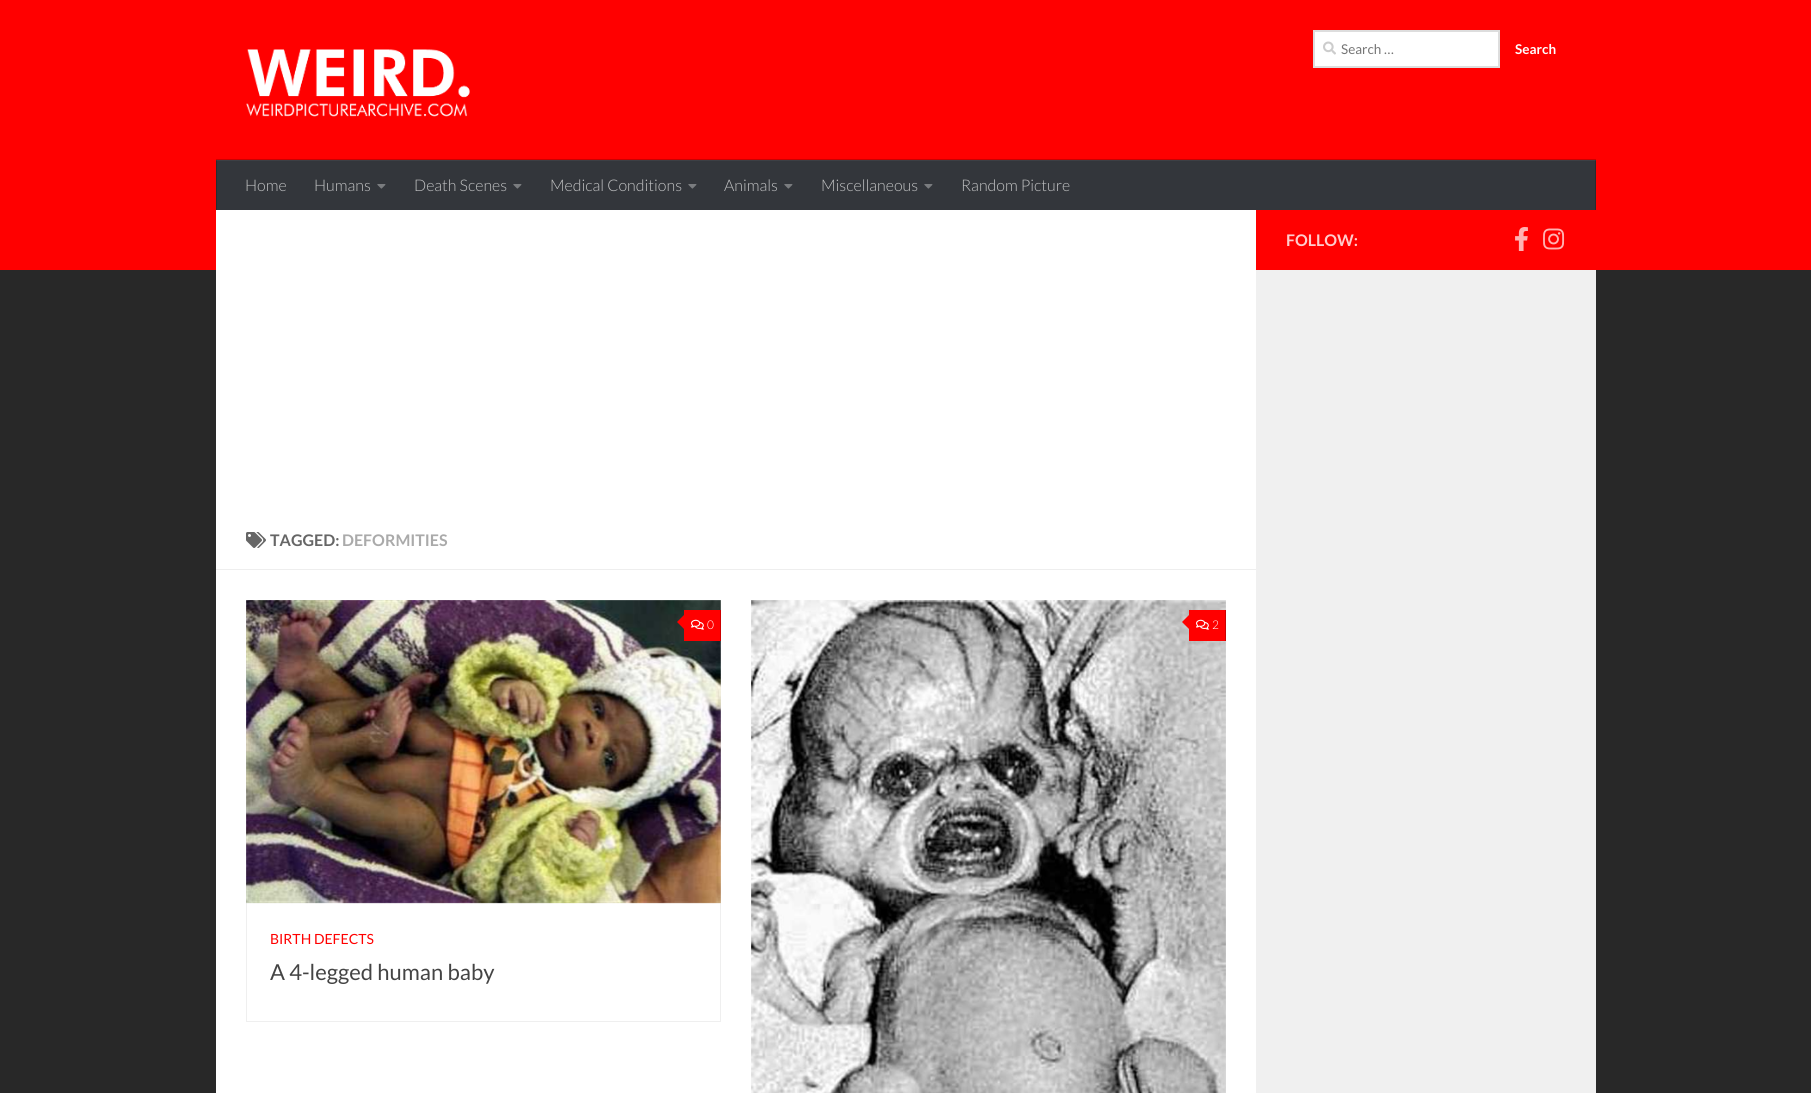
#include <cairo.h>
#include <math.h>
#include <stddef.h>


static void rgb(cairo_t *cr, int r, int g, int b)
{
	cairo_set_source_rgb(cr, r / 255.0, g / 255.0, b / 255.0);
}

static void face(cairo_t *cr, const char *family, double size, int italic, int bold)
{
	cairo_select_font_face(cr, family, italic ? CAIRO_FONT_SLANT_ITALIC : CAIRO_FONT_SLANT_NORMAL,
		bold ? CAIRO_FONT_WEIGHT_BOLD : CAIRO_FONT_WEIGHT_NORMAL);
	cairo_set_font_size(cr, size);
}

static void label(cairo_t *cr, double x, double y, const char *s)
{
	cairo_move_to(cr, x, y);
	cairo_show_text(cr, s);
}

static void rect(cairo_t *cr, double x, double y, double w, double h)
{
	cairo_rectangle(cr, x, y, w, h);
	cairo_fill(cr);
}

static void image(cairo_t *cr, const char *path, double x, double y, double w, double h)
{
	cairo_surface_t *image = cairo_image_surface_create_from_png(path);
	cairo_save(cr);
	cairo_set_source_surface(cr, image, x, y);
	cairo_rectangle(cr, x, y, w, h);
	cairo_fill(cr);
	cairo_restore(cr);
	cairo_surface_destroy(image);
}

static void draw(cairo_t *cr) {
	rgb(cr, 40, 40, 40);
	cairo_paint(cr);
	rgb(cr, 255, 0, 0);
	rect(cr, 0, 0, 1811, 270);
	image(cr, "image0.png", 246, 49, 224, 68);
	rgb(cr, 255, 255, 255);
	cairo_rectangle(cr, 1314, 31, 185, 36);
	cairo_fill_preserve(cr);
	rgb(cr, 221, 221, 221);
	cairo_stroke(cr);
	image(cr, "image1.png", 1323, 41, 13, 14);
	face(cr, "Lato", 13.5, 0, 0);
	rgb(cr, 117, 117, 117);
	label(cr, 1341, 54, "Search …");
	face(cr, "Lato", 13.5, 0, 1);
	rgb(cr, 255, 255, 255);
	label(cr, 1515, 54, "Search");
	rgb(cr, 204, 0, 0);
	rect(cr, 216, 159, 1380, 1);
	rgb(cr, 51, 54, 59);
	rect(cr, 217, 161, 1378, 49);
	rgb(cr, 61, 64, 69);
	rect(cr, 216, 160, 1380, 1);
	rgb(cr, 41, 43, 47);
	rect(cr, 1595, 160, 1, 50);
	rgb(cr, 52, 54, 57);
	rect(cr, 1595, 160, 1, 1);
	rgb(cr, 41, 43, 47);
	rect(cr, 216, 160, 1, 50);
	rgb(cr, 52, 54, 57);
	rect(cr, 216, 160, 1, 1);
	face(cr, "Lato Light", 16, 0, 0);
	rgb(cr, 194, 195, 196);
	label(cr, 245, 191, "Home");
	label(cr, 314, 191, "Humans");
	image(cr, "image2.png", 377, 184, 9, 5);
	label(cr, 414, 191, "Death Scenes");
	image(cr, "image2.png", 513, 184, 9, 5);
	label(cr, 550, 191, "Medical Conditions");
	image(cr, "image2.png", 688, 184, 9, 5);
	label(cr, 724, 191, "Animals");
	image(cr, "image2.png", 784, 184, 9, 5);
	label(cr, 821, 191, "Miscellaneous");
	image(cr, "image2.png", 924, 184, 9, 5);
	label(cr, 961, 191, "Random Picture");
	rgb(cr, 255, 255, 255);
	rect(cr, 216, 210, 1040, 883);
	face(cr, "Lato", 16, 0, 1);
	rgb(cr, 255, 204, 204);
	label(cr, 1286, 246, "FOLLOW:");
	image(cr, "image3.png", 1515, 227, 13, 24);
	image(cr, "image4.png", 1543, 228, 22, 22);
	rgb(cr, 238, 238, 238);
	rect(cr, 216, 569, 1040, 1);
	image(cr, "image5.png", 246, 532, 20, 16);
	rgb(cr, 102, 102, 102);
	label(cr, 270, 546, "TAGGED:");
	rgb(cr, 170, 170, 170);
	label(cr, 342, 546, "DEFORMITIES");
	cairo_rectangle(cr, 246.5, 600.5, 474, 421);
	rgb(cr, 239, 239, 239);
	cairo_set_line_width(cr, 1);
	cairo_stroke(cr);
	image(cr, "image6.png", 246, 600, 475, 304);
	rgb(cr, 255, 0, 0);
	rect(cr, 684, 610, 36, 31);
	rgb(cr, 204, 0, 0);
	rect(cr, 720, 610, 1, 31);
	rgb(cr, 255, 0, 0);
	cairo_new_path(cr);
	cairo_move_to(cr, 686, 613);
	cairo_line_to(cr, 686, 631);
	cairo_line_to(cr, 677, 622);
	cairo_close_path(cr);
	cairo_fill(cr);
	image(cr, "image7.png", 691, 619, 13, 11);
	face(cr, "Lato Light", 12, 0, 0);
	rgb(cr, 255, 255, 255);
	label(cr, 707, 629, "0");
	face(cr, "Lato", 14, 0, 0);
	rgb(cr, 255, 0, 0);
	label(cr, 270, 944, "BIRTH DEFECTS");
	face(cr, "Lato", 22, 0, 0);
	rgb(cr, 68, 68, 68);
	label(cr, 270, 980, "A 4-legged human baby");
	cairo_rectangle(cr, 751.5, 600.5, 474, 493);
	rgb(cr, 239, 239, 239);
	cairo_stroke(cr);
	image(cr, "image8.png", 751, 600, 475, 493);
	rgb(cr, 255, 0, 0);
	rect(cr, 1189, 610, 36, 31);
	rgb(cr, 204, 0, 0);
	rect(cr, 1225, 610, 1, 31);
	rgb(cr, 255, 0, 0);
	cairo_new_path(cr);
	cairo_move_to(cr, 1191, 613);
	cairo_line_to(cr, 1191, 631);
	cairo_line_to(cr, 1182, 622);
	cairo_close_path(cr);
	cairo_fill(cr);
	image(cr, "image7.png", 1196, 619, 13, 11);
	face(cr, "Lato Light", 12, 0, 0);
	rgb(cr, 255, 255, 255);
	label(cr, 1212, 629, "2");
	rgb(cr, 240, 240, 240);
	rect(cr, 1256, 270, 340, 823);
}

int main(void) {
	cairo_surface_t *surface = cairo_image_surface_create(CAIRO_FORMAT_RGB24, 1811, 1093);
	cairo_t *cr = cairo_create(surface);
	cairo_font_options_t *options = cairo_font_options_create();
	cairo_font_options_set_hint_metrics(options, CAIRO_HINT_METRICS_OFF);
	cairo_font_options_set_hint_style(options, CAIRO_HINT_STYLE_NONE);
	cairo_set_font_options(cr, options);
	cairo_set_miter_limit(cr, 4);
	draw(cr);
	cairo_surface_write_to_png(surface, "render.png");
	cairo_font_options_destroy(options);
	cairo_destroy(cr);
	cairo_surface_destroy(surface);
	return 0;
}
